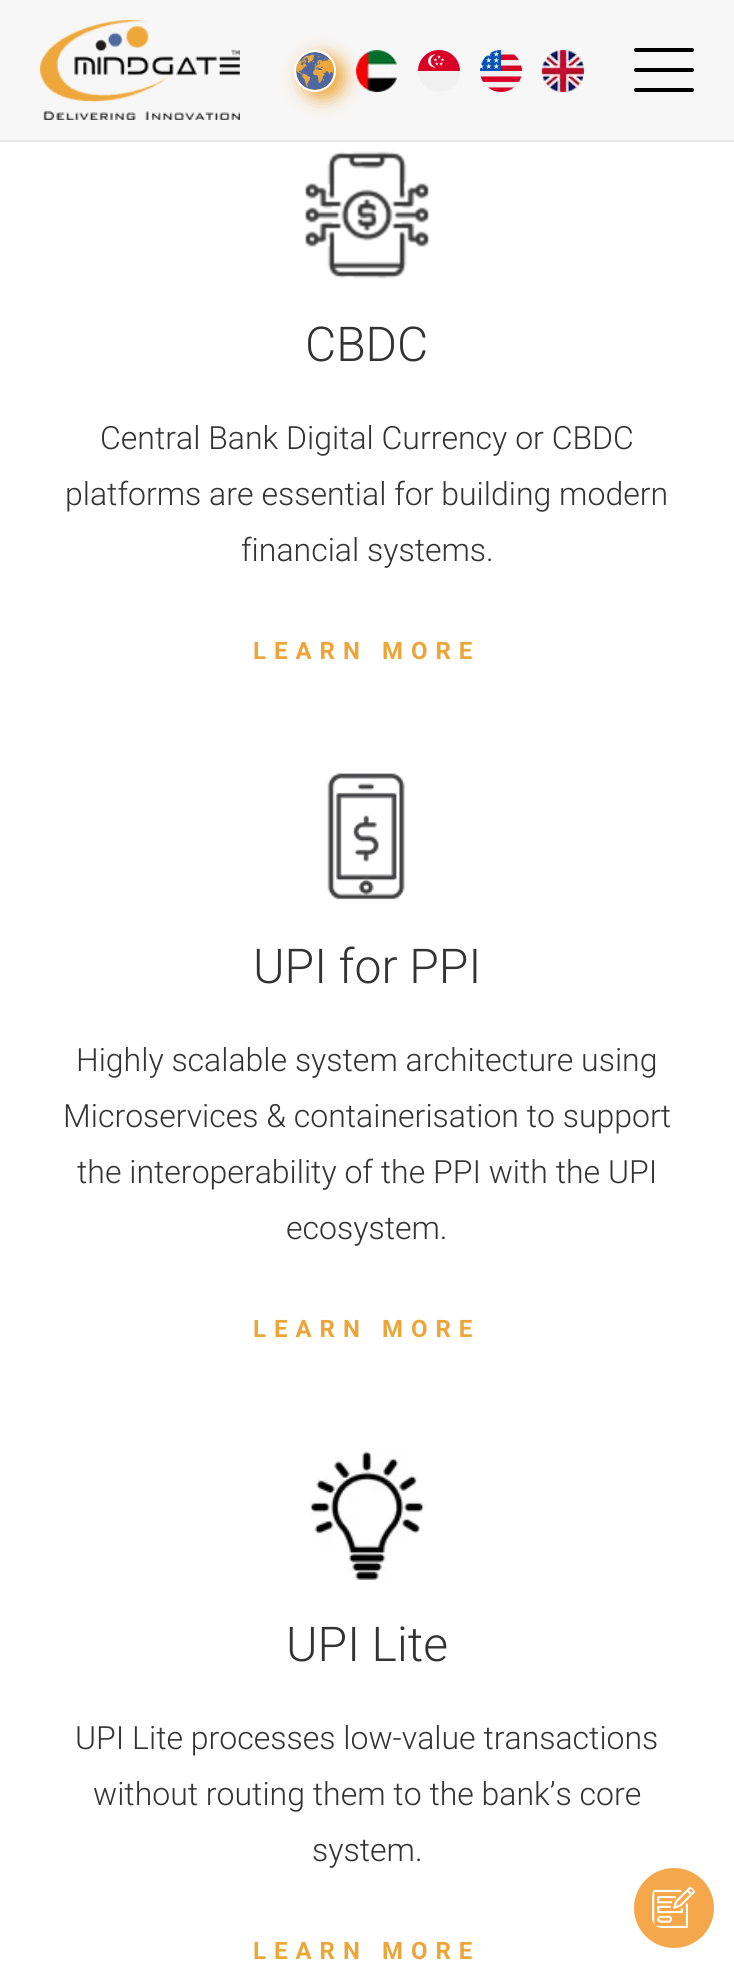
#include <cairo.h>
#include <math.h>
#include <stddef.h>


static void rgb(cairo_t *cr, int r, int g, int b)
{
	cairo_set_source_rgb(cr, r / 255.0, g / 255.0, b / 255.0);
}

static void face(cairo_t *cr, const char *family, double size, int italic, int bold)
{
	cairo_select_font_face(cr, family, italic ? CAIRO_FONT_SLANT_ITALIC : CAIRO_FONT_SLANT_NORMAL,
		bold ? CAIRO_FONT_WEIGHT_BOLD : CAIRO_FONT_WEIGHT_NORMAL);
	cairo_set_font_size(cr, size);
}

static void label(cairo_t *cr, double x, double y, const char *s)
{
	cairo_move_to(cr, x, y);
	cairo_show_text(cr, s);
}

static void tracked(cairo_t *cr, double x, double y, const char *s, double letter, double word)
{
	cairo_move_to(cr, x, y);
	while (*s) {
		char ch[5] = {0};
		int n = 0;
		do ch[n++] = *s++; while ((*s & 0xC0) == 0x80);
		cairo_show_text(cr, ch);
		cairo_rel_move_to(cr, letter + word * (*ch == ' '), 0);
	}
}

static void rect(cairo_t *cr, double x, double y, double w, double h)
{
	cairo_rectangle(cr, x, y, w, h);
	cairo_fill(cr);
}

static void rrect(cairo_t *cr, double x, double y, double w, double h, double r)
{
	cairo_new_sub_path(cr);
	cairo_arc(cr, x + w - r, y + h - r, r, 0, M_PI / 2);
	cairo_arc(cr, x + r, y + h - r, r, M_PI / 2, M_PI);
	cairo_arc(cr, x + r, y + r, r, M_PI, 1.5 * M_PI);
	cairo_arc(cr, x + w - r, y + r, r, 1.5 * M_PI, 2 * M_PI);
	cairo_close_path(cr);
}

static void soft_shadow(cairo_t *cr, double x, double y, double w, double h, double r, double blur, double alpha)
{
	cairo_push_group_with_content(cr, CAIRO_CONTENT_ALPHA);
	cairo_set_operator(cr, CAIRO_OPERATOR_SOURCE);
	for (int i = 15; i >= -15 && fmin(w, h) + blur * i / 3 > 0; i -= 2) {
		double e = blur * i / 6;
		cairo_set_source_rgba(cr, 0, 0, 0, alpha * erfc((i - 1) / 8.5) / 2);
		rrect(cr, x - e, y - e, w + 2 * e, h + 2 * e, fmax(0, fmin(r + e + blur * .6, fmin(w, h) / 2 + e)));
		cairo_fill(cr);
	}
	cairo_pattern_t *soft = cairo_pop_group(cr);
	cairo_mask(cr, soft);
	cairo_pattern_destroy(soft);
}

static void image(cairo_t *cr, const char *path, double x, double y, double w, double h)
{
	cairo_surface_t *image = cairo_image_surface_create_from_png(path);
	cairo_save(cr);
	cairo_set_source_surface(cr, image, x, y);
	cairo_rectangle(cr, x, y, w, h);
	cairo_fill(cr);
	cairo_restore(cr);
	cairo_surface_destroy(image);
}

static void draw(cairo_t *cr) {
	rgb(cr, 255, 255, 255);
	cairo_paint(cr);
	rgb(cr, 230, 230, 230);
	rect(cr, 0, 140, 734, 2);
	rgb(cr, 247, 247, 247);
	rect(cr, 0, 0, 734, 140);
	image(cr, "image0.png", 40, 20, 200, 100);
	rgb(cr, 238, 167, 59);
	soft_shadow(cr, 302, 56, 42, 42, 21, 9, 1);
	cairo_arc(cr, 315, 71, 20, 0, 2 * M_PI);
	rgb(cr, 255, 255, 255);
	cairo_stroke(cr);
	image(cr, "image1.png", 296, 52, 38, 38);
	image(cr, "image2.png", 356, 50, 42, 42);
	image(cr, "image3.png", 418, 50, 42, 42);
	image(cr, "image4.png", 480, 50, 42, 42);
	image(cr, "image5.png", 542, 50, 42, 42);
	rgb(cr, 245, 168, 75);
	cairo_arc(cr, 674, 1908, 40, 0, 2 * M_PI);
	cairo_fill(cr);
	image(cr, "image6.png", 652, 1886, 43, 42);
	rgb(cr, 0, 0, 0);
	rrect(cr, 634, 68, 60, 4, 2);
	cairo_fill(cr);
	rrect(cr, 634, 48, 60, 4, 2);
	cairo_fill(cr);
	rrect(cr, 634, 88, 60, 4, 2);
	cairo_fill(cr);
	image(cr, "image7.png", 304, 151, 126, 128);
	face(cr, "Roboto Light", 48, 0, 0);
	rgb(cr, 51, 51, 51);
	label(cr, 305, 361, "CBDC");
	face(cr, "Roboto Light", 32, 0, 0);
	label(cr, 100, 449, "Central Bank Digital Currency or CBDC");
	label(cr, 65, 505, "platforms are essential for building modern");
	label(cr, 241, 561, "financial systems.");
	face(cr, "Roboto", 24, 0, 1);
	rgb(cr, 236, 165, 57);
	tracked(cr, 253, 659, "LEARN MORE", 8, 0);
	image(cr, "image8.png", 327, 773, 78, 127);
	face(cr, "Roboto Light", 48, 0, 0);
	rgb(cr, 51, 51, 51);
	label(cr, 253, 983, "UPI for PPI");
	face(cr, "Roboto Light", 32, 0, 0);
	label(cr, 76, 1071, "Highly scalable system architecture using");
	label(cr, 63, 1127, "Microservices & containerisation to support");
	label(cr, 77, 1183, "the interoperability of the PPI with the UPI");
	label(cr, 286, 1239, "ecosystem.");
	face(cr, "Roboto", 24, 0, 1);
	rgb(cr, 236, 165, 57);
	tracked(cr, 253, 1337, "LEARN MORE", 8, 0);
	image(cr, "image9.png", 310, 1451, 116, 129);
	face(cr, "Roboto Light", 48, 0, 0);
	rgb(cr, 51, 51, 51);
	label(cr, 286, 1661, "UPI Lite");
	face(cr, "Roboto Light", 32, 0, 0);
	label(cr, 75, 1749, "UPI Lite processes low-value transactions");
	label(cr, 93, 1805, "without routing them to the bank’s core");
	label(cr, 312, 1861, "system.");
	face(cr, "Roboto", 24, 0, 1);
	rgb(cr, 236, 165, 57);
	tracked(cr, 253, 1959, "LEARN MORE", 8, 0);
}

int main(void) {
	cairo_surface_t *surface = cairo_image_surface_create(CAIRO_FORMAT_RGB24, 734, 1968);
	cairo_t *cr = cairo_create(surface);
	cairo_font_options_t *options = cairo_font_options_create();
	cairo_font_options_set_hint_metrics(options, CAIRO_HINT_METRICS_OFF);
	cairo_font_options_set_hint_style(options, CAIRO_HINT_STYLE_NONE);
	cairo_set_font_options(cr, options);
	cairo_set_miter_limit(cr, 4);
	draw(cr);
	cairo_surface_write_to_png(surface, "render.png");
	cairo_font_options_destroy(options);
	cairo_destroy(cr);
	cairo_surface_destroy(surface);
	return 0;
}
